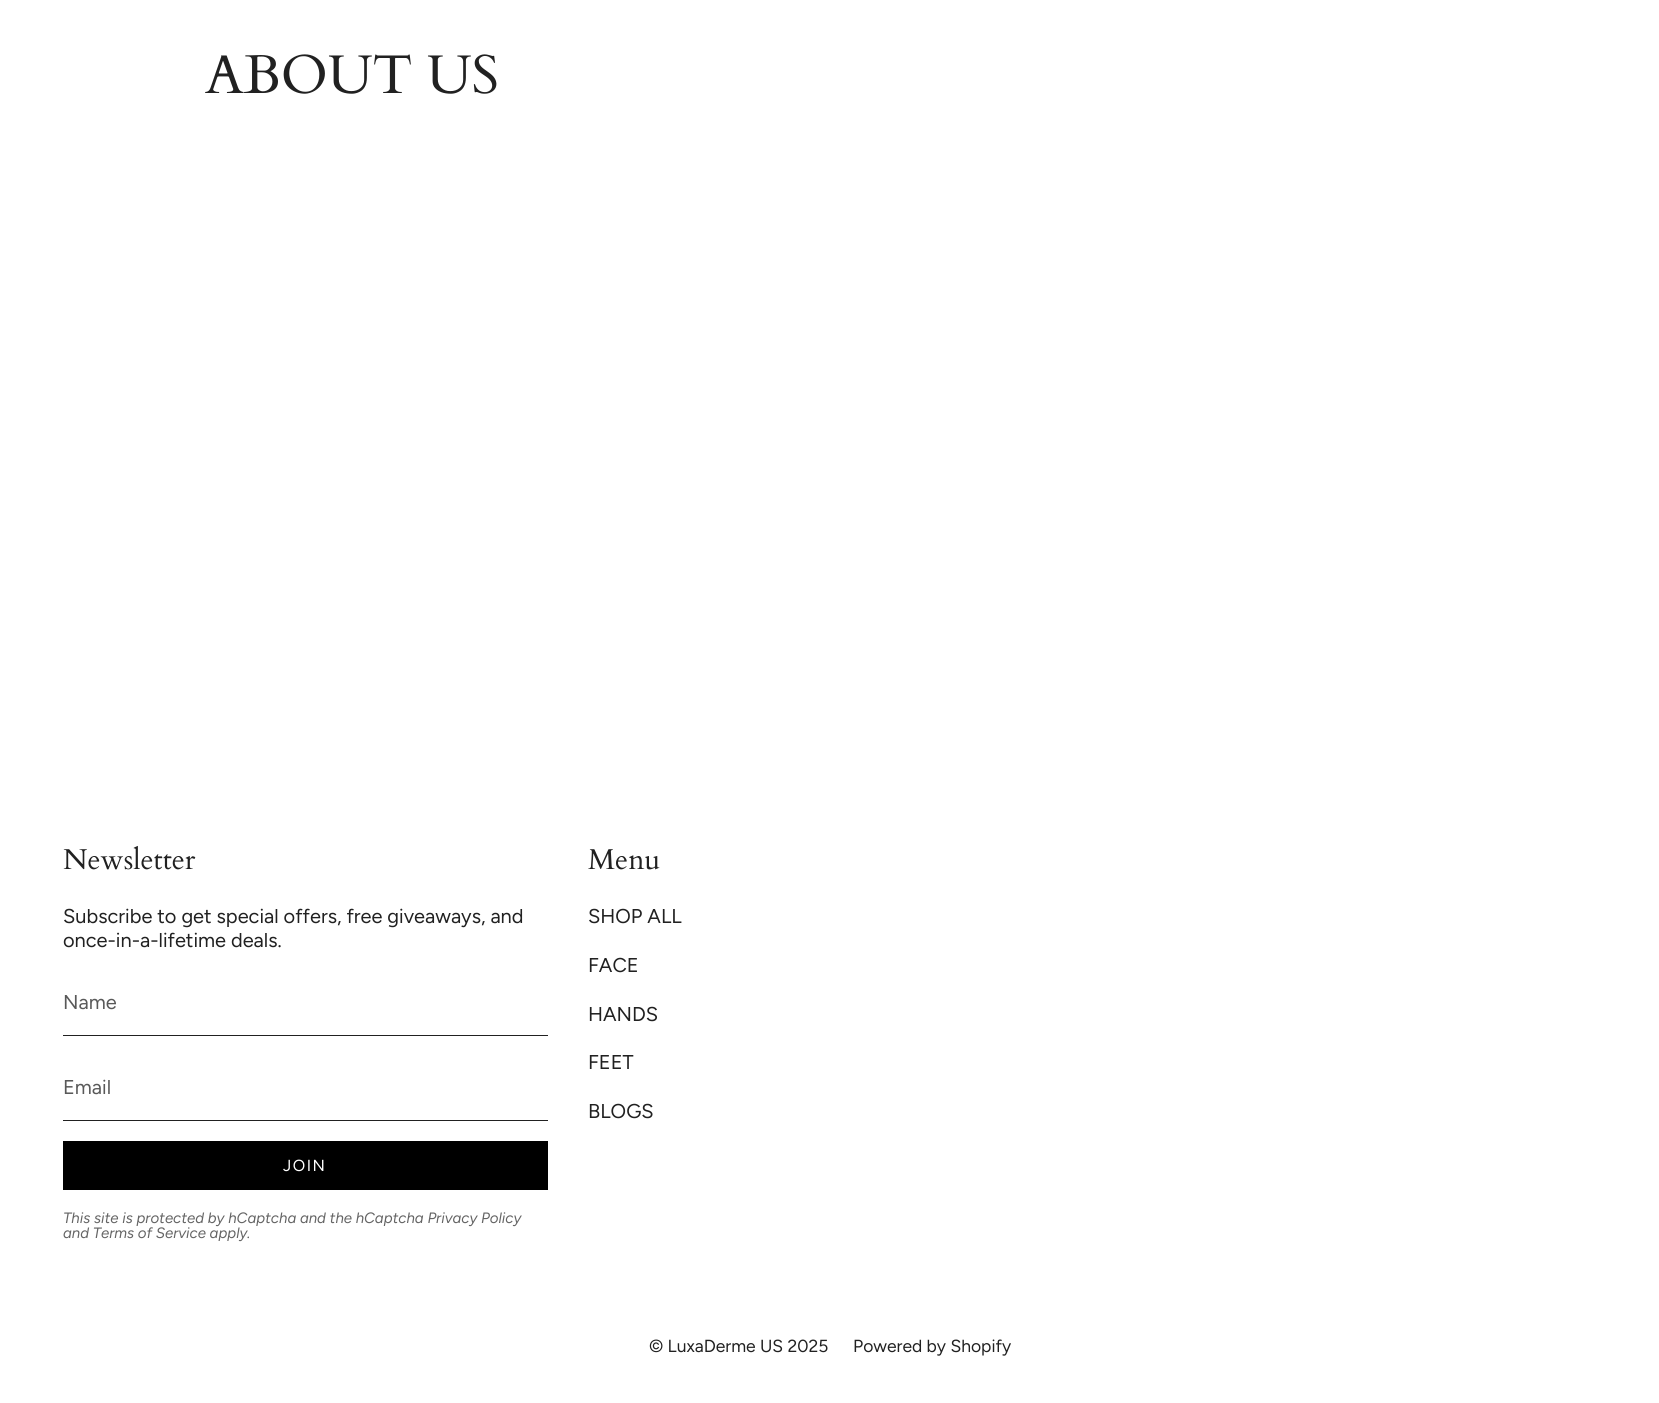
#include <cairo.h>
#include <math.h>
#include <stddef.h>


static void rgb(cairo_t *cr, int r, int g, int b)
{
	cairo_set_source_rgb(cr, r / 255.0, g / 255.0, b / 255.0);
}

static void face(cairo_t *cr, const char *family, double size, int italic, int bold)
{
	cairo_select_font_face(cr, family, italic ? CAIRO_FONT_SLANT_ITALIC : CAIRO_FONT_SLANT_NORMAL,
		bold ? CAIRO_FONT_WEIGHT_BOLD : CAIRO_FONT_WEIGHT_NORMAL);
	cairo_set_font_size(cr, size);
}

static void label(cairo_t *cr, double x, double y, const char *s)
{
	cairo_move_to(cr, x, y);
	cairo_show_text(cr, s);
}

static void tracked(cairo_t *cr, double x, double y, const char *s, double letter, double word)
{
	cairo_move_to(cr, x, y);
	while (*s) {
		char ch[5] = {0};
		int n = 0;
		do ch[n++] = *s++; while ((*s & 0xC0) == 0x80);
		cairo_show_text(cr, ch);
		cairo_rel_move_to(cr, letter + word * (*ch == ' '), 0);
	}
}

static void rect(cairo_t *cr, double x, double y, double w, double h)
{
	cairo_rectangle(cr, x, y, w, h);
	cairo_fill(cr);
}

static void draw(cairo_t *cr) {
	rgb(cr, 255, 255, 255);
	cairo_paint(cr);
	face(cr, "Cardo", 54.5, 0, 0);
	rgb(cr, 33, 33, 33);
	label(cr, 205, 93, "ABOUT US");
	face(cr, "Cardo", 28.75, 0, 0);
	label(cr, 63, 869, "Newsletter");
	face(cr, "Figtree", 20, 0, 0);
	label(cr, 63, 923, "Subscribe to get special offers, free giveaways, and");
	label(cr, 63, 947, "once-in-a-lifetime deals.");
	rect(cr, 63, 1035, 485, 1);
	rgb(cr, 89, 89, 89);
	label(cr, 63, 1009, "Name");
	rgb(cr, 33, 33, 33);
	rect(cr, 63, 1120, 485, 1);
	rgb(cr, 89, 89, 89);
	label(cr, 63, 1094, "Email");
	rgb(cr, 0, 0, 0);
	rect(cr, 63, 1141, 485, 49);
	face(cr, "Figtree", 16, 0, 0);
	rgb(cr, 255, 255, 255);
	tracked(cr, 283, 1171, "JOIN", 1.5, 0);
	face(cr, "Figtree", 15, 1, 0);
	rgb(cr, 100, 100, 100);
	label(cr, 63, 1223, "This site is protected by hCaptcha and the hCaptcha Privacy Policy");
	label(cr, 63, 1238, "and Terms of Service apply.");
	face(cr, "Cardo", 28.75, 0, 0);
	rgb(cr, 33, 33, 33);
	label(cr, 588, 869, "Menu");
	face(cr, "Figtree", 20, 0, 0);
	label(cr, 588, 923, "SHOP ALL");
	label(cr, 588, 972, "FACE");
	label(cr, 588, 1021, "HANDS");
	label(cr, 588, 1069, "FEET");
	label(cr, 588, 1118, "BLOGS");
	face(cr, "Figtree", 17.5, 0, 0);
	label(cr, 649, 1352, "© LuxaDerme US 2025");
	label(cr, 853, 1352, "Powered by Shopify");
}

int main(void) {
	cairo_surface_t *surface = cairo_image_surface_create(CAIRO_FORMAT_RGB24, 1659, 1403);
	cairo_t *cr = cairo_create(surface);
	cairo_font_options_t *options = cairo_font_options_create();
	cairo_font_options_set_hint_metrics(options, CAIRO_HINT_METRICS_OFF);
	cairo_font_options_set_hint_style(options, CAIRO_HINT_STYLE_NONE);
	cairo_set_font_options(cr, options);
	cairo_set_miter_limit(cr, 4);
	draw(cr);
	cairo_surface_write_to_png(surface, "render.png");
	cairo_font_options_destroy(options);
	cairo_destroy(cr);
	cairo_surface_destroy(surface);
	return 0;
}
